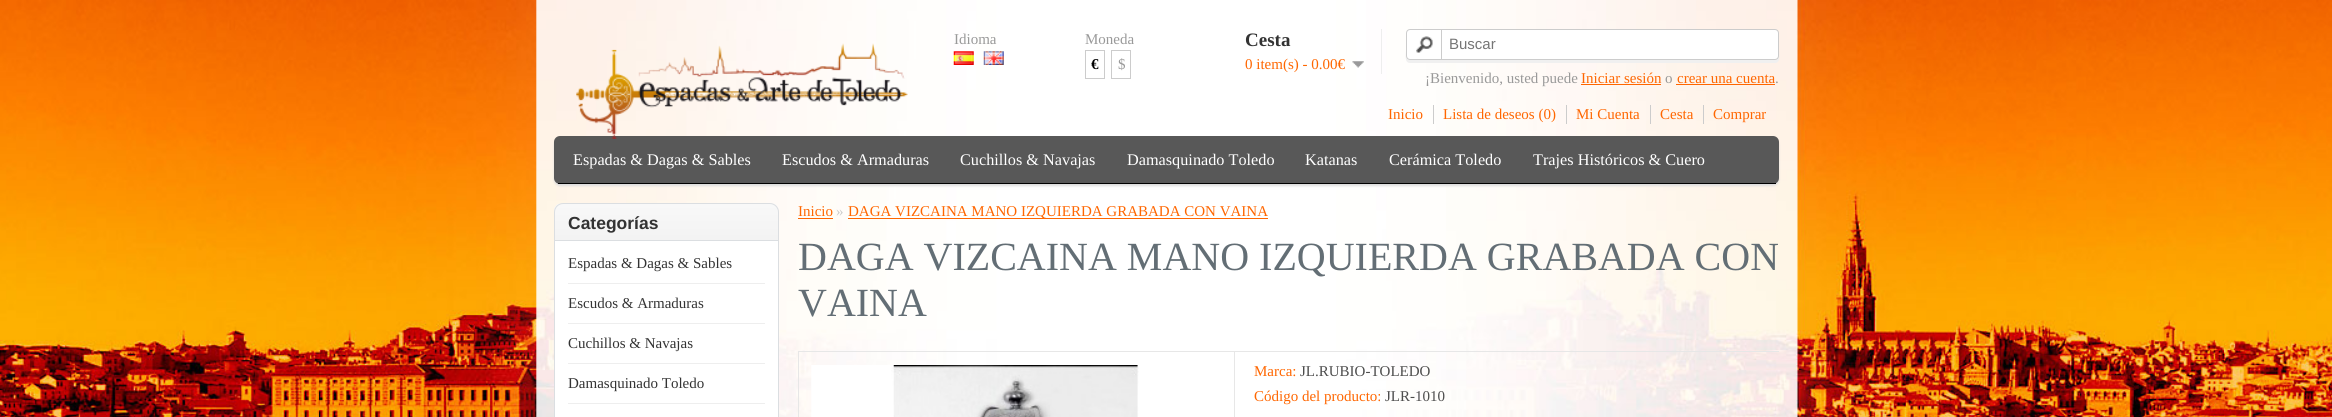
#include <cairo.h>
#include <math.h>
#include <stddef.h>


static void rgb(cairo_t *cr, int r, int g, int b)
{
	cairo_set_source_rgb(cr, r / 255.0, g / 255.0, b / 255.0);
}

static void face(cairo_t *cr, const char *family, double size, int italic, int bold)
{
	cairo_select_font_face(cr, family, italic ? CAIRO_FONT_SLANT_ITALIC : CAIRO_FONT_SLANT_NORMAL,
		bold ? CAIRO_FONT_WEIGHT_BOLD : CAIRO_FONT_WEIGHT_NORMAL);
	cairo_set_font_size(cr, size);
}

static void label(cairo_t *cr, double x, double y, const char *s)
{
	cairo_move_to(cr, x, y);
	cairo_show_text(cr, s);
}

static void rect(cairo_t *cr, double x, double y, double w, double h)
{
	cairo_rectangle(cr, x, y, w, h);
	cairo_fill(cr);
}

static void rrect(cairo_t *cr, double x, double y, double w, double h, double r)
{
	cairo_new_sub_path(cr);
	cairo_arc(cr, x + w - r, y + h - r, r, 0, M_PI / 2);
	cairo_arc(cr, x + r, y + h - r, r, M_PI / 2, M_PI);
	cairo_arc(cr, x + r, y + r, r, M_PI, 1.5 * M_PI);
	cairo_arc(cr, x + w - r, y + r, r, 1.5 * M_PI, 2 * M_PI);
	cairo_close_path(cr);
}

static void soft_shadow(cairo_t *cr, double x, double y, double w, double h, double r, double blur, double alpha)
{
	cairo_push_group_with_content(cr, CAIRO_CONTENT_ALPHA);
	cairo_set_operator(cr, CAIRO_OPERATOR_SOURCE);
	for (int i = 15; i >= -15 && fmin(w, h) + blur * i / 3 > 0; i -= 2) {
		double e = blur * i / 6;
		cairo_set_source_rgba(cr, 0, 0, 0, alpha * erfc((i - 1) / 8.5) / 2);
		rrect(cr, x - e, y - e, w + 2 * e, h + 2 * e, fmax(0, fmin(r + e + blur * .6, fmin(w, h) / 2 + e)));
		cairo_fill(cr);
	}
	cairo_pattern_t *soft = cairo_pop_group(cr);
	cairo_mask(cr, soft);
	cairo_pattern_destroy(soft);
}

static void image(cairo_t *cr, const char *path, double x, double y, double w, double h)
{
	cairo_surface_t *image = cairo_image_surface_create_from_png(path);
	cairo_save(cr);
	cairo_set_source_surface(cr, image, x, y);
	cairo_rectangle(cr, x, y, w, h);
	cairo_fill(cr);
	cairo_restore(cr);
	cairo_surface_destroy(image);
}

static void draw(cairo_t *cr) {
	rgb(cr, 255, 255, 255);
	cairo_paint(cr);
	image(cr, "image0.png", 0, 0, 2332, 417);
	rgb(cr, 221, 221, 221);
	soft_shadow(cr, 554, 139, 1225, 47, 6, 1, 1);
	rgb(cr, 88, 88, 88);
	rrect(cr, 554, 136, 1225, 48, 6);
	cairo_fill(cr);
	image(cr, "image1.png", 576, 43, 332, 96);
	face(cr, "Liberation Serif", 15, 0, 0);
	rgb(cr, 153, 153, 153);
	label(cr, 954, 44, "Idioma");
	image(cr, "image2.png", 953, 51, 21, 14);
	image(cr, "image3.png", 983, 51, 21, 14);
	label(cr, 1085, 44, "Moneda");
	cairo_rectangle(cr, 1085.5, 50.5, 19, 28);
	rgb(cr, 204, 204, 204);
	cairo_set_line_width(cr, 1);
	cairo_stroke(cr);
	face(cr, "Liberation Serif", 15, 0, 1);
	rgb(cr, 0, 0, 0);
	label(cr, 1091, 69, "€");
	cairo_rectangle(cr, 1111.5, 50.5, 19, 28);
	rgb(cr, 204, 204, 204);
	cairo_stroke(cr);
	face(cr, "Liberation Serif", 15, 0, 0);
	rgb(cr, 153, 153, 153);
	label(cr, 1118, 69, "$");
	rgb(cr, 238, 238, 238);
	rect(cr, 1381, 29, 1, 45);
	face(cr, "Liberation Serif", 19, 0, 1);
	rgb(cr, 51, 51, 51);
	label(cr, 1245, 46, "Cesta");
	face(cr, "Liberation Serif", 15, 0, 0);
	rgb(cr, 255, 102, 0);
	label(cr, 1245, 69, "0 item(s) - 0.00€");
	image(cr, "image4.png", 1352, 61, 12, 7);
	rgb(cr, 240, 240, 240);
	cairo_new_path(cr);
	cairo_move_to(cr, 1406, 34);
	cairo_line_to(cr, 1406, 51);
	cairo_curve_to(cr, 1406, 54, 1404, 63, 1410, 63);
	cairo_line_to(cr, 1775, 63);
	cairo_curve_to(cr, 1781, 63, 1779, 54, 1779, 51);
	cairo_line_to(cr, 1779, 34);
	cairo_line_to(cr, 1779, 56);
	cairo_curve_to(cr, 1779, 58, 1777, 60, 1775, 60);
	cairo_line_to(cr, 1410, 60);
	cairo_curve_to(cr, 1408, 60, 1406, 58, 1406, 56);
	cairo_close_path(cr);
	cairo_fill(cr);
	rgb(cr, 255, 255, 255);
	rrect(cr, 1406.5, 29.5, 372, 30, 3.5);
	cairo_fill_preserve(cr);
	rgb(cr, 204, 204, 204);
	cairo_stroke(cr);
	image(cr, "image5.png", 1416, 36, 17, 17);
	rect(cr, 1441, 29, 1, 30);
	face(cr, "Liberation Sans", 15, 0, 0);
	rgb(cr, 117, 117, 117);
	label(cr, 1449, 49, "Buscar");
	face(cr, "Liberation Serif", 15, 0, 0);
	rgb(cr, 153, 153, 153);
	label(cr, 1425, 83, "¡Bienvenido, usted puede");
	rgb(cr, 255, 102, 0);
	label(cr, 1581, 83, "Iniciar sesión");
	rect(cr, 1581, 84, 80, 1);
	rgb(cr, 153, 153, 153);
	label(cr, 1665, 83, "o");
	rgb(cr, 255, 102, 0);
	label(cr, 1677, 83, "crear una cuenta");
	rect(cr, 1676, 84, 99, 1);
	rgb(cr, 153, 153, 153);
	label(cr, 1775, 83, ".");
	rgb(cr, 255, 102, 0);
	label(cr, 1388, 119, "Inicio");
	rgb(cr, 204, 204, 204);
	rect(cr, 1433, 105, 1, 19);
	rgb(cr, 255, 102, 0);
	label(cr, 1443, 119, "Lista de deseos (0)");
	rgb(cr, 204, 204, 204);
	rect(cr, 1566, 105, 1, 19);
	rgb(cr, 255, 102, 0);
	label(cr, 1576, 119, "Mi Cuenta");
	rgb(cr, 204, 204, 204);
	rect(cr, 1650, 105, 1, 19);
	rgb(cr, 255, 102, 0);
	label(cr, 1660, 119, "Cesta");
	rgb(cr, 204, 204, 204);
	rect(cr, 1703, 105, 1, 19);
	rgb(cr, 255, 102, 0);
	label(cr, 1713, 119, "Comprar");
	rgb(cr, 0, 0, 0);
	rect(cr, 558, 183, 1218, 1);
	face(cr, "Liberation Serif", 16.25, 0, 0);
	rgb(cr, 255, 255, 255);
	label(cr, 573, 165, "Espadas & Dagas & Sables");
	label(cr, 782, 165, "Escudos & Armaduras");
	label(cr, 960, 165, "Cuchillos & Navajas");
	label(cr, 1127, 165, "Damasquinado Toledo");
	label(cr, 1305, 165, "Katanas");
	label(cr, 1389, 165, "Cerámica Toledo");
	label(cr, 1533, 165, "Trajes Históricos & Cuero");
	image(cr, "image6.png", 554, 203, 225, 37);
	cairo_new_path(cr);
	cairo_move_to(cr, 563, 203.5);
	cairo_line_to(cr, 770, 203.5);
	cairo_curve_to(cr, 774.5, 203.5, 778.5, 207.5, 778.5, 212);
	cairo_line_to(cr, 778.5, 240.5);
	cairo_line_to(cr, 554.5, 240.5);
	cairo_line_to(cr, 554.5, 212);
	cairo_curve_to(cr, 554.5, 207.5, 558.5, 203.5, 563, 203.5);
	cairo_close_path(cr);
	rgb(cr, 219, 222, 225);
	cairo_stroke(cr);
	face(cr, "Liberation Sans", 17.5, 0, 1);
	rgb(cr, 51, 51, 51);
	label(cr, 568, 229, "Categorías");
	rgb(cr, 255, 255, 255);
	rect(cr, 555, 241, 223, 176);
	rgb(cr, 219, 222, 225);
	cairo_set_fill_rule(cr, CAIRO_FILL_RULE_EVEN_ODD);
	cairo_new_path(cr);
	cairo_move_to(cr, 554, 241);
	cairo_line_to(cr, 779, 241);
	cairo_line_to(cr, 779, 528);
	cairo_curve_to(cr, 779, 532, 775, 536, 770, 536);
	cairo_line_to(cr, 562, 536);
	cairo_curve_to(cr, 558, 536, 554, 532, 554, 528);
	cairo_close_path(cr);
	cairo_move_to(cr, 555, 241);
	cairo_line_to(cr, 778, 241);
	cairo_line_to(cr, 778, 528);
	cairo_curve_to(cr, 778, 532, 774, 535, 770, 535);
	cairo_line_to(cr, 562, 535);
	cairo_curve_to(cr, 558, 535, 555, 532, 555, 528);
	cairo_close_path(cr);
	cairo_fill(cr);
	face(cr, "Liberation Serif", 15, 0, 0);
	rgb(cr, 51, 51, 51);
	label(cr, 568, 268, "Espadas & Dagas & Sables");
	rgb(cr, 238, 238, 238);
	rect(cr, 568, 283, 197, 1);
	rgb(cr, 51, 51, 51);
	label(cr, 568, 308, "Escudos & Armaduras");
	rgb(cr, 238, 238, 238);
	rect(cr, 568, 323, 197, 1);
	rgb(cr, 51, 51, 51);
	label(cr, 568, 348, "Cuchillos & Navajas");
	rgb(cr, 238, 238, 238);
	rect(cr, 568, 363, 197, 1);
	rgb(cr, 51, 51, 51);
	label(cr, 568, 388, "Damasquinado Toledo");
	rgb(cr, 238, 238, 238);
	rect(cr, 568, 403, 197, 1);
	rgb(cr, 255, 102, 0);
	label(cr, 798, 216, "Inicio");
	rect(cr, 798, 218, 35, 1);
	rgb(cr, 204, 204, 204);
	label(cr, 836, 216, "»");
	rgb(cr, 255, 102, 0);
	rect(cr, 848, 218, 420, 1);
	label(cr, 848, 216, "DAGA VIZCAINA MANO IZQUIERDA GRABADA CON VAINA");
	face(cr, "Liberation Serif", 40, 0, 0);
	rgb(cr, 99, 110, 117);
	label(cr, 798, 270, "DAGA VIZCAINA MANO IZQUIERDA GRABADA CON");
	label(cr, 798, 316, "VAINA");
	cairo_rectangle(cr, 798.5, 351.5, 436, 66);
	rgb(cr, 231, 231, 231);
	cairo_stroke(cr);
	image(cr, "image7.png", 811, 365, 328, 52);
	rect(cr, 1235, 351, 544, 1);
	face(cr, "Liberation Serif", 15, 0, 0);
	rgb(cr, 255, 102, 0);
	label(cr, 1254, 376, "Marca:");
	rgb(cr, 77, 77, 77);
	label(cr, 1300, 376, "JL.RUBIO-TOLEDO");
	rgb(cr, 255, 102, 0);
	label(cr, 1254, 401, "Código del producto:");
	rgb(cr, 77, 77, 77);
	label(cr, 1385, 401, "JLR-1010");
}

int main(void) {
	cairo_surface_t *surface = cairo_image_surface_create(CAIRO_FORMAT_RGB24, 2332, 417);
	cairo_t *cr = cairo_create(surface);
	cairo_font_options_t *options = cairo_font_options_create();
	cairo_font_options_set_hint_metrics(options, CAIRO_HINT_METRICS_OFF);
	cairo_font_options_set_hint_style(options, CAIRO_HINT_STYLE_NONE);
	cairo_set_font_options(cr, options);
	cairo_set_miter_limit(cr, 4);
	draw(cr);
	cairo_surface_write_to_png(surface, "render.png");
	cairo_font_options_destroy(options);
	cairo_destroy(cr);
	cairo_surface_destroy(surface);
	return 0;
}
